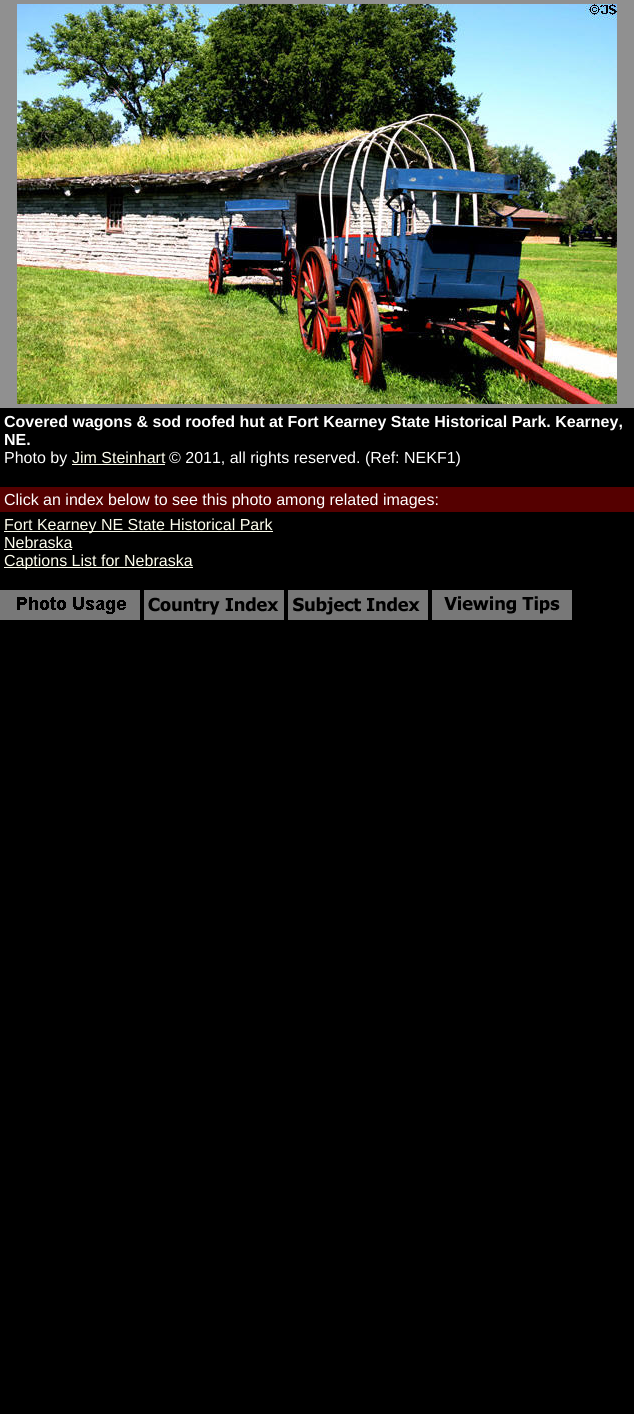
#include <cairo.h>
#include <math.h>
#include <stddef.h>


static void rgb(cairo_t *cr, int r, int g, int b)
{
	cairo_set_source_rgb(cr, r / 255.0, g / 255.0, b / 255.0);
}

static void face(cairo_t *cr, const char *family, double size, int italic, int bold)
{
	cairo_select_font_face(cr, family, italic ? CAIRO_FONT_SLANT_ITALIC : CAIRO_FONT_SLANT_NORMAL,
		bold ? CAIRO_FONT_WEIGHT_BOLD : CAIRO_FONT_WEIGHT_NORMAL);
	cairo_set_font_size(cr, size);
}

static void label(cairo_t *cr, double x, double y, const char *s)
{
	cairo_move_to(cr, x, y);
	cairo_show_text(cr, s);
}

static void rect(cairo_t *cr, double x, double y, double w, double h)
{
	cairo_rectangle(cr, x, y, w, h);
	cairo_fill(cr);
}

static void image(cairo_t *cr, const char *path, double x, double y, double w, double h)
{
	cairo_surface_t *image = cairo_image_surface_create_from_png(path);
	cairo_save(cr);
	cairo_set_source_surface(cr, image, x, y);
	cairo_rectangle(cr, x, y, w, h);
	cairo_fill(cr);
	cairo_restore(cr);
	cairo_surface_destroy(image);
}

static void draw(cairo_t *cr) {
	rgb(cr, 0, 0, 0);
	cairo_paint(cr);
	rgb(cr, 144, 144, 144);
	rect(cr, 0, 0, 634, 408);
	image(cr, "image0.png", 17, 4, 600, 400);
	face(cr, "Liberation Sans", 16, 0, 1);
	rgb(cr, 255, 255, 255);
	label(cr, 4, 427, "Covered wagons & sod roofed hut at Fort Kearney State Historical Park. Kearney,");
	label(cr, 4, 445, "NE.");
	face(cr, "Liberation Sans", 16, 0, 0);
	label(cr, 4, 463, "Photo by");
	rgb(cr, 255, 255, 238);
	label(cr, 72, 463, "Jim Steinhart");
	rect(cr, 72, 464, 93, 1);
	rgb(cr, 255, 255, 255);
	label(cr, 169, 463, "© 2011, all rights reserved. (Ref: NEKF1)");
	rgb(cr, 85, 0, 0);
	rect(cr, 0, 487, 634, 25);
	rgb(cr, 255, 255, 255);
	label(cr, 4, 505, "Click an index below to see this photo among related images:");
	rgb(cr, 255, 255, 238);
	rect(cr, 4, 531, 269, 1);
	label(cr, 4, 530, "Fort Kearney NE State Historical Park");
	label(cr, 4, 548, "Nebraska");
	rect(cr, 4, 549, 68, 1);
	rect(cr, 4, 567, 189, 1);
	label(cr, 4, 566, "Captions List for Nebraska");
	image(cr, "image1.png", 0, 590, 140, 30);
	image(cr, "image2.png", 144, 590, 140, 30);
	image(cr, "image3.png", 288, 590, 140, 30);
	image(cr, "image4.png", 432, 590, 140, 30);
}

int main(void) {
	cairo_surface_t *surface = cairo_image_surface_create(CAIRO_FORMAT_RGB24, 634, 1414);
	cairo_t *cr = cairo_create(surface);
	cairo_font_options_t *options = cairo_font_options_create();
	cairo_font_options_set_hint_metrics(options, CAIRO_HINT_METRICS_OFF);
	cairo_font_options_set_hint_style(options, CAIRO_HINT_STYLE_NONE);
	cairo_set_font_options(cr, options);
	cairo_set_miter_limit(cr, 4);
	draw(cr);
	cairo_surface_write_to_png(surface, "render.png");
	cairo_font_options_destroy(options);
	cairo_destroy(cr);
	cairo_surface_destroy(surface);
	return 0;
}
